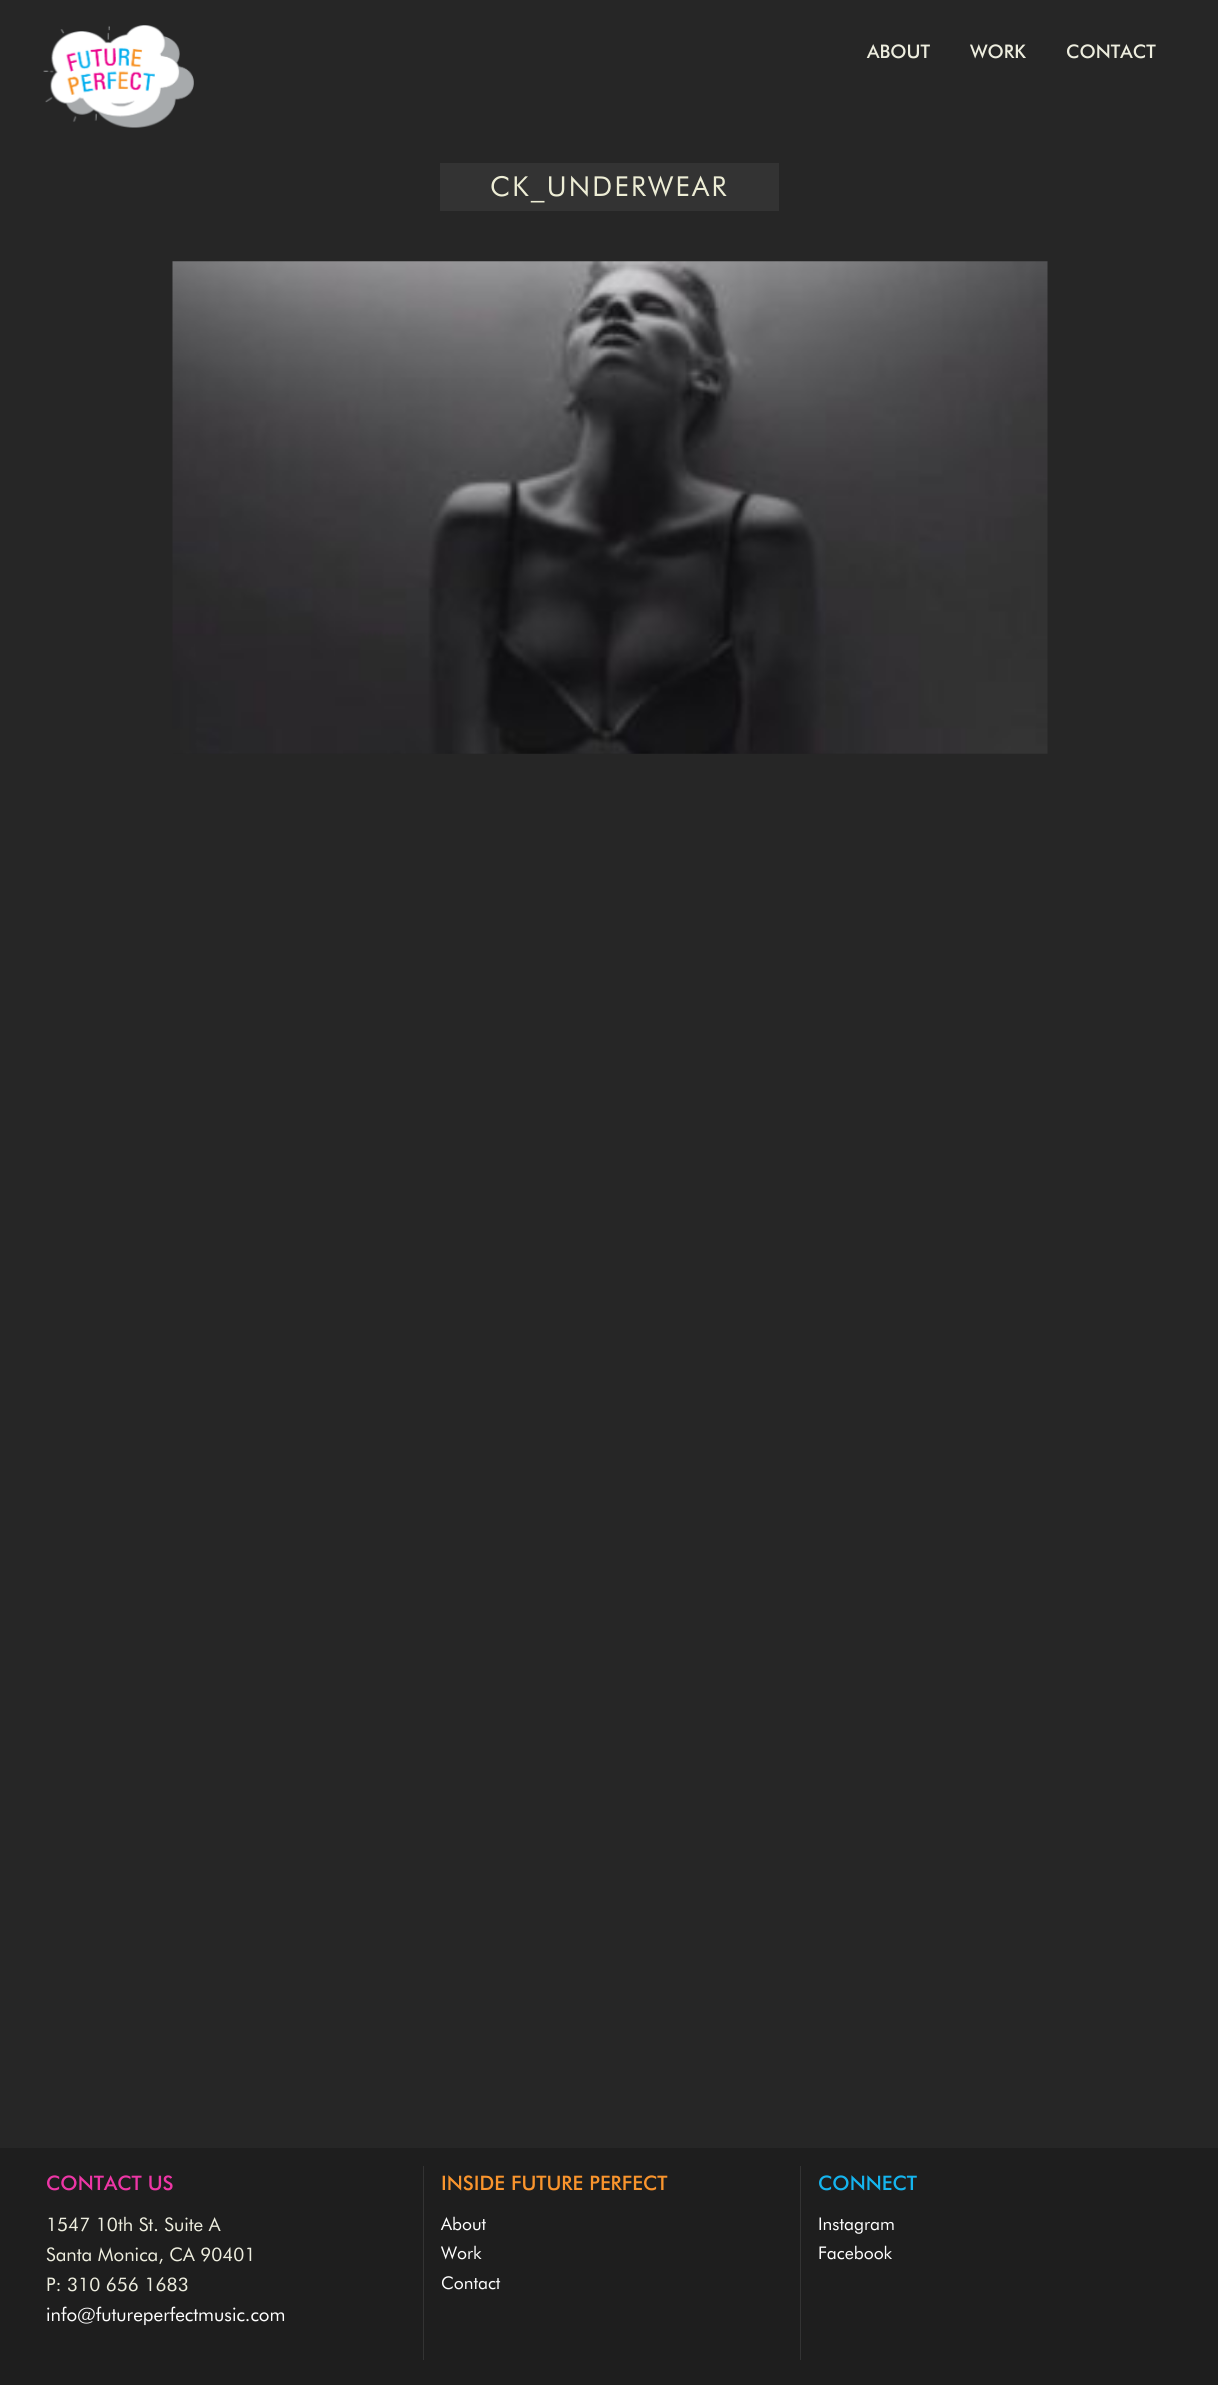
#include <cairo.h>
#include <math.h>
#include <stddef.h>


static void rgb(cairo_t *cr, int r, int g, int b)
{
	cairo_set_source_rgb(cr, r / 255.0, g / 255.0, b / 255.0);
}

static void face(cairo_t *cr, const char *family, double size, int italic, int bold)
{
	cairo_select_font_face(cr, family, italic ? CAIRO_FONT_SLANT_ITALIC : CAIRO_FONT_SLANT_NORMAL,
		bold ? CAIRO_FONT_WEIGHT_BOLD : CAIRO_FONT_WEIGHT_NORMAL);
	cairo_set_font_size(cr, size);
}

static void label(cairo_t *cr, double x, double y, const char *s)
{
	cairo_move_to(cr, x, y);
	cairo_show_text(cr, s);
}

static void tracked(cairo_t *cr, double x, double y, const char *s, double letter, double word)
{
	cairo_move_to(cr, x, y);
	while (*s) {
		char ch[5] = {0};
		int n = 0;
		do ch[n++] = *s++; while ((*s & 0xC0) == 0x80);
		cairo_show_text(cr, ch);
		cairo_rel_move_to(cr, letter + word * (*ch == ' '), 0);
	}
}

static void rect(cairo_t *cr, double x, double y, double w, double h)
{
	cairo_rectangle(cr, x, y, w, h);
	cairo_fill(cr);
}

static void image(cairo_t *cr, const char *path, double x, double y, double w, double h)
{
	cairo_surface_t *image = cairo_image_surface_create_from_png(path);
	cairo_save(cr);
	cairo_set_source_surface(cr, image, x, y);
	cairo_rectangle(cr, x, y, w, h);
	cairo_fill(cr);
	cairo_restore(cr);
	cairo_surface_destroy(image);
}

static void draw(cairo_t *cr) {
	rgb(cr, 38, 38, 38);
	cairo_paint(cr);
	image(cr, "image0.png", 43, 25, 151, 103);
	face(cr, "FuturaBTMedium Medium", 18.75, 0, 0);
	rgb(cr, 237, 237, 222);
	label(cr, 867, 58, "ABOUT");
	label(cr, 970, 58, "WORK");
	label(cr, 1066, 58, "CONTACT");
	rgb(cr, 51, 51, 51);
	rect(cr, 440, 163, 339, 48);
	face(cr, "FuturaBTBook", 27.5, 0, 0);
	rgb(cr, 237, 237, 213);
	tracked(cr, 490, 196, "CK_UNDERWEAR", 2.25, 0);
	image(cr, "image1.png", 172, 261, 876, 493);
	rgb(cr, 30, 30, 30);
	rect(cr, 0, 2148, 1218, 237);
	face(cr, "FuturaBTMedium Medium", 20, 0, 0);
	rgb(cr, 238, 54, 166);
	label(cr, 46, 2190, "CONTACT US");
	face(cr, "FuturaBTBook", 18.75, 0, 0);
	rgb(cr, 237, 237, 222);
	label(cr, 46, 2231, "1547 10th St. Suite A");
	label(cr, 46, 2261, "Santa Monica, CA 90401");
	label(cr, 46, 2291, "P: 310 656 1683");
	rgb(cr, 255, 255, 255);
	label(cr, 46, 2321, "info@futureperfectmusic.com");
	rgb(cr, 51, 51, 51);
	rect(cr, 423, 2166, 1, 194);
	face(cr, "FuturaBTMedium Medium", 20, 0, 0);
	rgb(cr, 250, 149, 45);
	label(cr, 441, 2190, "INSIDE FUTURE PERFECT");
	face(cr, "FuturaBTBook", 17.5, 0, 0);
	rgb(cr, 255, 255, 255);
	label(cr, 441, 2230, "About");
	label(cr, 441, 2259, "Work");
	label(cr, 441, 2289, "Contact");
	rgb(cr, 51, 51, 51);
	rect(cr, 800, 2166, 1, 194);
	face(cr, "FuturaBTMedium Medium", 20, 0, 0);
	rgb(cr, 21, 181, 239);
	label(cr, 818, 2190, "CONNECT");
	face(cr, "FuturaBTBook", 17.5, 0, 0);
	rgb(cr, 255, 255, 255);
	label(cr, 818, 2230, "Instagram");
	label(cr, 818, 2259, "Facebook");
}

int main(void) {
	cairo_surface_t *surface = cairo_image_surface_create(CAIRO_FORMAT_RGB24, 1218, 2385);
	cairo_t *cr = cairo_create(surface);
	cairo_font_options_t *options = cairo_font_options_create();
	cairo_font_options_set_hint_metrics(options, CAIRO_HINT_METRICS_OFF);
	cairo_font_options_set_hint_style(options, CAIRO_HINT_STYLE_NONE);
	cairo_set_font_options(cr, options);
	cairo_set_miter_limit(cr, 4);
	draw(cr);
	cairo_surface_write_to_png(surface, "render.png");
	cairo_font_options_destroy(options);
	cairo_destroy(cr);
	cairo_surface_destroy(surface);
	return 0;
}
